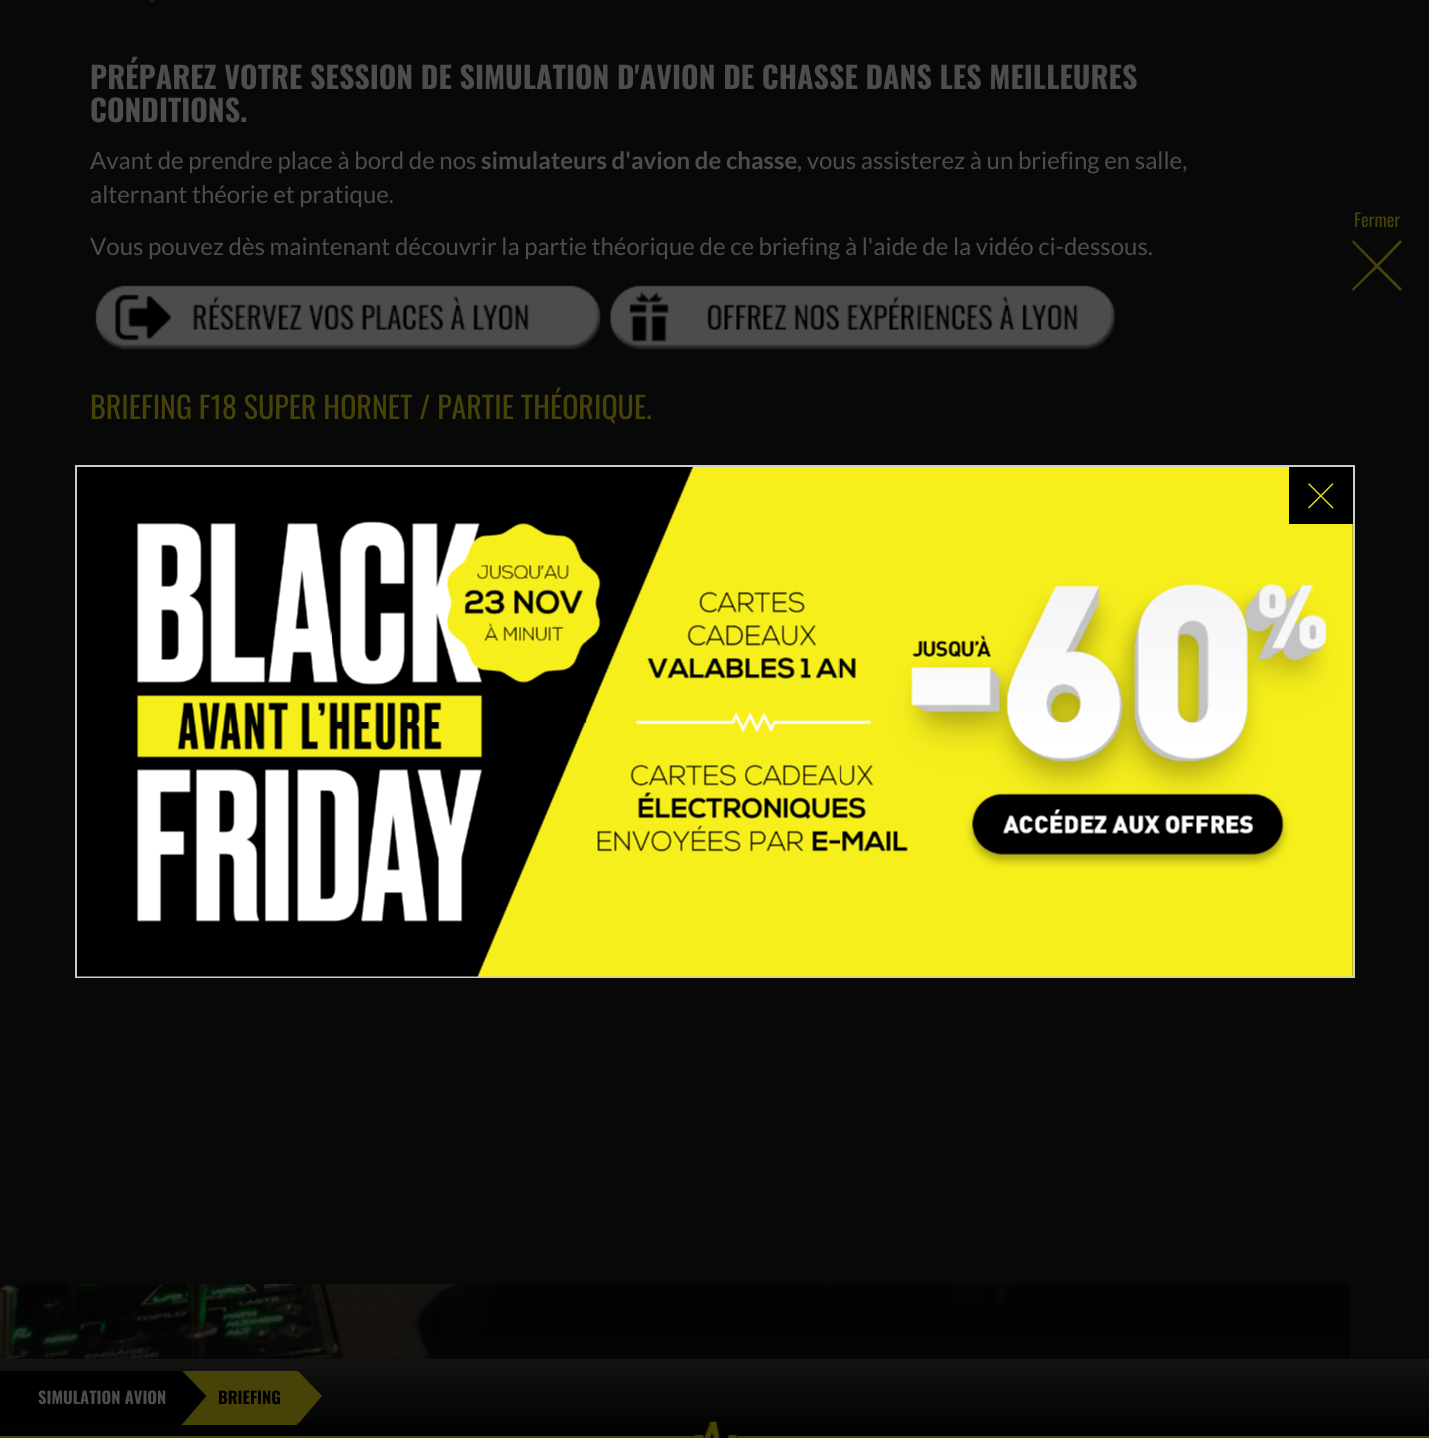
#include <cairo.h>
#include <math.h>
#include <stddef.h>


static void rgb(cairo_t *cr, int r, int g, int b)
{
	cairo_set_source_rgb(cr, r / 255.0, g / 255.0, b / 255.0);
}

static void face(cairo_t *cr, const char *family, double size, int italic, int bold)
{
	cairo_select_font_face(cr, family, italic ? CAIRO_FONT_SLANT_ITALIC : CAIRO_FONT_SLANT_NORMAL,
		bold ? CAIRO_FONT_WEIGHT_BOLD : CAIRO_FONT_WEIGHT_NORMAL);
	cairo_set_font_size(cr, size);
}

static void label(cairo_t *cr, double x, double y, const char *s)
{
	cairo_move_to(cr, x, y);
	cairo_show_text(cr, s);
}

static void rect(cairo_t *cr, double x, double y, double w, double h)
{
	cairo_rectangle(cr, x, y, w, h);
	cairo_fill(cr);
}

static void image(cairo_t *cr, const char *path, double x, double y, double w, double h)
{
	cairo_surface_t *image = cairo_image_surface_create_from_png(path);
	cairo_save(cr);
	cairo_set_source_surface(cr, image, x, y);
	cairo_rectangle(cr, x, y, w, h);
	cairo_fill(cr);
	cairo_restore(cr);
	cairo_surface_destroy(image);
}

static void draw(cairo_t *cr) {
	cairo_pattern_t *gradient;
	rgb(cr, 8, 8, 8);
	cairo_paint(cr);
	image(cr, "image0.png", 148, 0, 7, 3);
	face(cr, "Oswald", 30, 0, 1);
	rgb(cr, 77, 77, 77);
	label(cr, 90, 89, "PRÉPAREZ VOTRE SESSION DE SIMULATION D'AVION DE CHASSE DANS LES MEILLEURES");
	label(cr, 90, 122, "CONDITIONS.");
	face(cr, "Lato", 24, 0, 0);
	label(cr, 90, 169, "Avant de prendre place à bord de nos");
	face(cr, "Lato", 24, 0, 1);
	label(cr, 481, 169, "simulateurs d'avion de chasse");
	face(cr, "Lato", 24, 0, 0);
	label(cr, 797, 169, ", vous assisterez à un briefing en salle,");
	label(cr, 90, 203, "alternant théorie et pratique.");
	label(cr, 90, 255, "Vous pouvez dès maintenant découvrir la partie théorique de ce briefing à l'aide de la vidéo ci-dessous.");
	image(cr, "image1.png", 95, 285, 506, 65);
	image(cr, "image2.png", 610, 285, 505, 65);
	face(cr, "Oswald", 30, 0, 0);
	rgb(cr, 71, 66, 7);
	label(cr, 90, 419, "BRIEFING F18 SUPER HORNET / PARTIE THÉORIQUE.");
	face(cr, "Oswald", 18, 0, 0);
	label(cr, 1354, 227, "Fermer");
	cairo_new_path(cr);
	cairo_move_to(cr, 1402, 242);
	cairo_line_to(cr, 1400, 240);
	cairo_line_to(cr, 1377, 264);
	cairo_line_to(cr, 1353, 240);
	cairo_line_to(cr, 1352, 242);
	cairo_line_to(cr, 1375, 266);
	cairo_line_to(cr, 1352, 289);
	cairo_line_to(cr, 1353, 291);
	cairo_line_to(cr, 1377, 268);
	cairo_line_to(cr, 1400, 291);
	cairo_line_to(cr, 1402, 289);
	cairo_line_to(cr, 1379, 266);
	cairo_close_path(cr);
	cairo_fill(cr);
	image(cr, "image3.png", 0, 1284, 1350, 75);
	gradient = cairo_pattern_create_linear(675, 1103, 675, 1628);
	cairo_pattern_add_color_stop_rgba(gradient, 0, 0.031, 0.031, 0.031, 0);
	cairo_pattern_add_color_stop_rgba(gradient, 1, 0.031, 0.031, 0.031, 1);
	cairo_set_source(cr, gradient);
	cairo_pattern_destroy(gradient);
	rect(cr, 0, 1284, 1350, 75);
	cairo_rectangle(cr, 76, 466, 1278, 511);
	rgb(cr, 204, 204, 204);
	cairo_stroke(cr);
	image(cr, "image4.png", 77, 467, 1277, 510);
	rgb(cr, 0, 0, 0);
	rect(cr, 1289, 467, 64, 57);
	image(cr, "image5.png", 1308, 483, 26, 26);
	rect(cr, 703, 1437, 34, 1);
	gradient = cairo_pattern_create_linear(715, 1359, 715, 1437);
	cairo_pattern_add_color_stop_rgba(gradient, 0, 0.075, 0.075, 0.071, 1);
	cairo_pattern_add_color_stop_rgba(gradient, 1, 0, 0, 0, 1);
	cairo_set_source(cr, gradient);
	cairo_pattern_destroy(gradient);
	rect(cr, 0, 1359, 1429, 78);
	rgb(cr, 0, 0, 0);
	rect(cr, 0, 1371, 182, 54);
	rgb(cr, 71, 66, 7);
	rect(cr, 182, 1371, 115, 54);
	rgb(cr, 37, 37, 37);
	cairo_new_path(cr);
	cairo_move_to(cr, 183, 1424);
	cairo_line_to(cr, 183, 1371);
	cairo_line_to(cr, 207, 1396);
	cairo_close_path(cr);
	cairo_fill(cr);
	rgb(cr, 0, 0, 0);
	cairo_new_path(cr);
	cairo_move_to(cr, 182, 1424);
	cairo_line_to(cr, 182, 1371);
	cairo_line_to(cr, 206, 1396);
	cairo_close_path(cr);
	cairo_fill(cr);
	face(cr, "Oswald", 16.5, 0, 1);
	rgb(cr, 77, 77, 77);
	label(cr, 38, 1404, "SIMULATION AVION");
	rgb(cr, 71, 66, 7);
	cairo_new_path(cr);
	cairo_move_to(cr, 298, 1424);
	cairo_line_to(cr, 298, 1371);
	cairo_line_to(cr, 322, 1396);
	cairo_close_path(cr);
	cairo_fill(cr);
	cairo_new_path(cr);
	cairo_move_to(cr, 297, 1424);
	cairo_line_to(cr, 297, 1371);
	cairo_line_to(cr, 321, 1396);
	cairo_close_path(cr);
	cairo_fill(cr);
	rgb(cr, 0, 0, 0);
	label(cr, 218, 1404, "BRIEFING");
	image(cr, "image6.png", 694, 1421, 43, 17);
	rgb(cr, 71, 66, 7);
	rect(cr, 0, 1436, 695, 2);
	rect(cr, 737, 1436, 692, 2);
}

int main(void) {
	cairo_surface_t *surface = cairo_image_surface_create(CAIRO_FORMAT_RGB24, 1429, 1438);
	cairo_t *cr = cairo_create(surface);
	cairo_font_options_t *options = cairo_font_options_create();
	cairo_font_options_set_hint_metrics(options, CAIRO_HINT_METRICS_OFF);
	cairo_font_options_set_hint_style(options, CAIRO_HINT_STYLE_NONE);
	cairo_set_font_options(cr, options);
	cairo_set_miter_limit(cr, 4);
	draw(cr);
	cairo_surface_write_to_png(surface, "render.png");
	cairo_font_options_destroy(options);
	cairo_destroy(cr);
	cairo_surface_destroy(surface);
	return 0;
}
